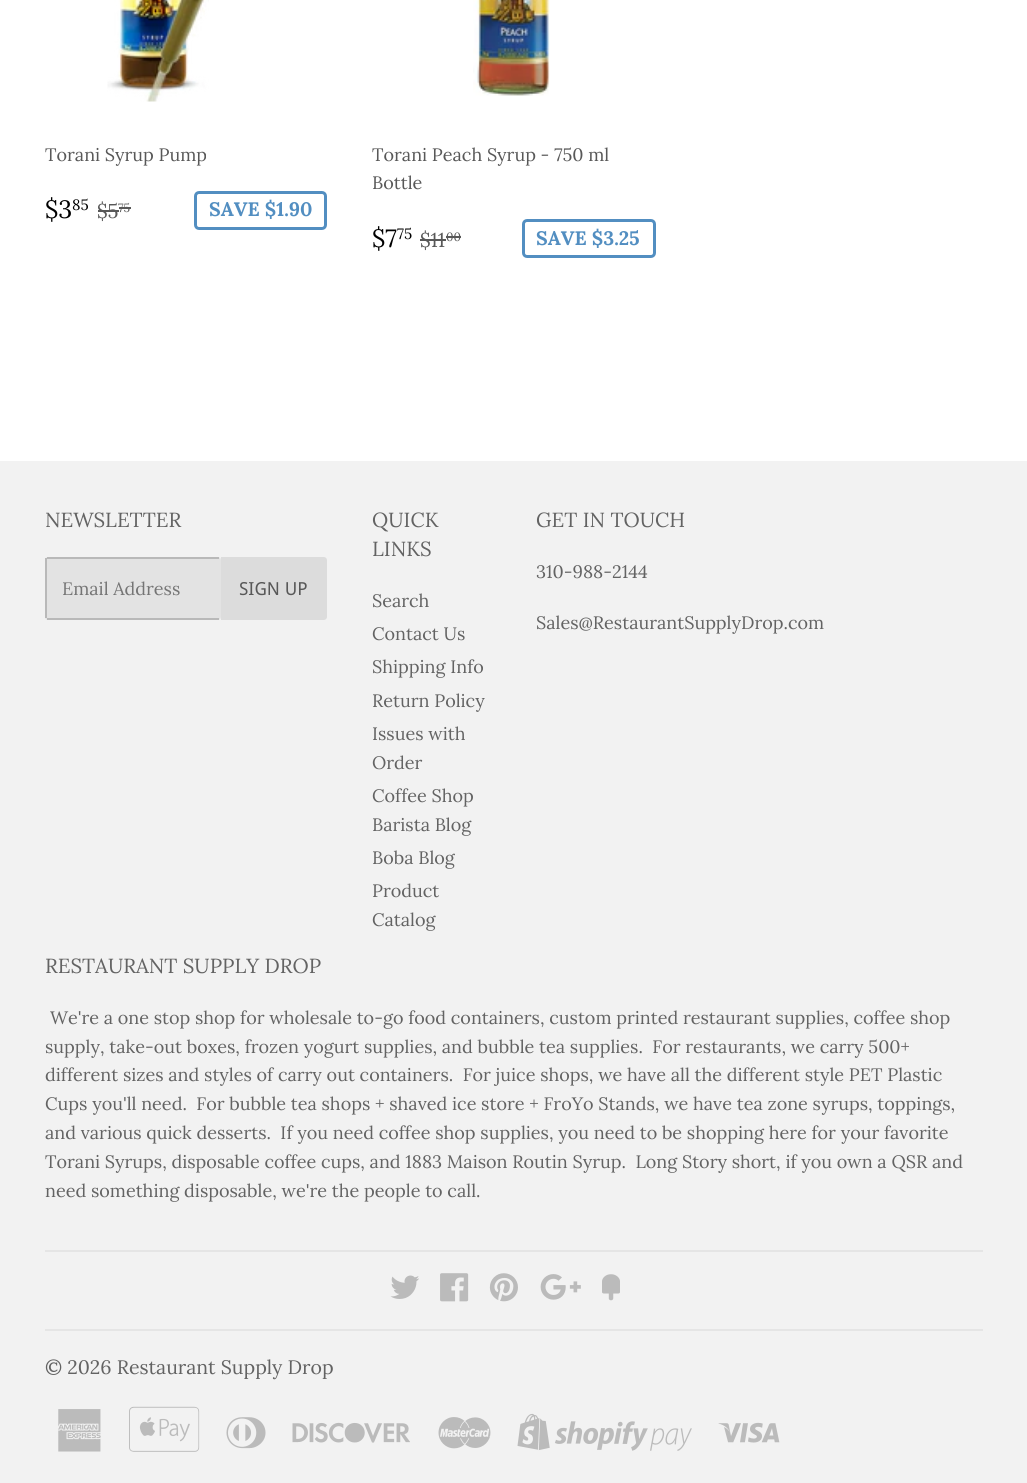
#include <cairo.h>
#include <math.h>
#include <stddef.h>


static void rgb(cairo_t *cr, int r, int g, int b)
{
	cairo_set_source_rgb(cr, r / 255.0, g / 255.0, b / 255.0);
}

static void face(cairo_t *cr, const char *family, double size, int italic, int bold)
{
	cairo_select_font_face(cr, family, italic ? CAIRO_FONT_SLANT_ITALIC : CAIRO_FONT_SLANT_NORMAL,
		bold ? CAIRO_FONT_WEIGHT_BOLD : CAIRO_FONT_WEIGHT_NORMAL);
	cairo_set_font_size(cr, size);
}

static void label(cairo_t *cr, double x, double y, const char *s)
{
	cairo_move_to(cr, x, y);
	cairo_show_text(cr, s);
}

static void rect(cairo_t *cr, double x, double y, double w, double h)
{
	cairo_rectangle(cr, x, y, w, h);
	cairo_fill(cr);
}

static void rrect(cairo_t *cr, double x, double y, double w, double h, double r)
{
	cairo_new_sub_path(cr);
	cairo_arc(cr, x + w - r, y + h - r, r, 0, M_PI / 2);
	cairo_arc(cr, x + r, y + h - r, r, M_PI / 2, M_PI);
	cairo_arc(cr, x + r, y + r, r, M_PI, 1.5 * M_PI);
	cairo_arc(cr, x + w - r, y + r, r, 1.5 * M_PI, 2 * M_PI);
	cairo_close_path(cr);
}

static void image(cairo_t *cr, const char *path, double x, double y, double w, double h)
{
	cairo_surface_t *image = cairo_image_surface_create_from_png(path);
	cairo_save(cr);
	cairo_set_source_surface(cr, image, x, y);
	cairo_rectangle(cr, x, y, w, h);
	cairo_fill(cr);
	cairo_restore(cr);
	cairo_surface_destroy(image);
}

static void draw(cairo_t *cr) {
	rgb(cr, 255, 255, 255);
	cairo_paint(cr);
	image(cr, "image0.png", 107, 0, 102, 102);
	face(cr, "Lora", 18, 0, 0);
	rgb(cr, 88, 88, 88);
	label(cr, 45, 161, "Torani Syrup Pump");
	face(cr, "Lora", 25, 0, 0);
	rgb(cr, 0, 0, 0);
	label(cr, 45, 218, "$3");
	face(cr, "Lora", 15, 0, 0);
	label(cr, 72, 210, "85");
	face(cr, "Lora", 20, 0, 0);
	rgb(cr, 88, 88, 88);
	label(cr, 97, 218, "$5");
	rect(cr, 98, 210, 21, 2);
	face(cr, "Lora", 12, 0, 0);
	label(cr, 118, 212, "75");
	rect(cr, 119, 207, 12, 2);
	rrect(cr, 195.5, 192.5, 130, 36, 3.5);
	rgb(cr, 82, 142, 193);
	cairo_set_line_width(cr, 3);
	cairo_stroke(cr);
	face(cr, "Lora", 19.5, 0, 1);
	label(cr, 209, 216, "SAVE $1.90");
	image(cr, "image1.png", 473, 0, 77, 96);
	face(cr, "Lora", 18, 0, 0);
	rgb(cr, 88, 88, 88);
	label(cr, 372, 161, "Torani Peach Syrup - 750 ml");
	label(cr, 372, 189, "Bottle");
	face(cr, "Lora", 25, 0, 0);
	rgb(cr, 0, 0, 0);
	label(cr, 372, 247, "$7");
	face(cr, "Lora", 15, 0, 0);
	label(cr, 397, 239, "75");
	face(cr, "Lora", 20, 0, 0);
	rgb(cr, 88, 88, 88);
	label(cr, 420, 247, "$11");
	rect(cr, 420, 239, 26, 2);
	face(cr, "Lora", 12, 0, 0);
	label(cr, 446, 241, "00");
	rect(cr, 446, 236, 15, 2);
	rrect(cr, 523.5, 220.5, 131, 36, 3.5);
	rgb(cr, 82, 142, 193);
	cairo_stroke(cr);
	face(cr, "Lora", 19.5, 0, 1);
	label(cr, 536, 245, "SAVE $3.25");
	rgb(cr, 242, 242, 242);
	rect(cr, 0, 461, 1027, 1022);
	face(cr, "Lora", 20.4, 0, 0);
	rgb(cr, 99, 99, 99);
	label(cr, 45, 527, "NEWSLETTER");
	rgb(cr, 227, 227, 227);
	rrect(cr, 45, 557, 176, 63, 3);
	cairo_fill(cr);
	rgb(cr, 185, 185, 185);
	rect(cr, 47, 557, 172, 2);
	rect(cr, 47, 618, 172, 2);
	rect(cr, 45, 558, 2, 60);
	face(cr, "Lora", 18, 0, 0);
	rgb(cr, 117, 117, 117);
	label(cr, 62, 595, "Email Address");
	rgb(cr, 220, 220, 220);
	cairo_new_path(cr);
	cairo_move_to(cr, 221, 557);
	cairo_line_to(cr, 324, 557);
	cairo_curve_to(cr, 325.5, 557, 327, 558.5, 327, 560);
	cairo_line_to(cr, 327, 617);
	cairo_curve_to(cr, 327, 618.5, 325.5, 620, 324, 620);
	cairo_line_to(cr, 221, 620);
	cairo_close_path(cr);
	cairo_fill(cr);
	face(cr, "Droid Sans", 18, 0, 0);
	rgb(cr, 88, 88, 88);
	label(cr, 239, 595, "SIGN UP");
	face(cr, "Lora", 20.4, 0, 0);
	rgb(cr, 99, 99, 99);
	label(cr, 372, 527, "QUICK");
	label(cr, 372, 556, "LINKS");
	face(cr, "Lora", 18, 0, 0);
	label(cr, 372, 607, "Search");
	label(cr, 372, 640, "Contact Us");
	label(cr, 372, 673, "Shipping Info");
	label(cr, 372, 707, "Return Policy");
	label(cr, 372, 740, "Issues with");
	label(cr, 372, 769, "Order");
	label(cr, 372, 802, "Coffee Shop");
	label(cr, 372, 831, "Barista Blog");
	label(cr, 372, 864, "Boba Blog");
	label(cr, 372, 897, "Product");
	label(cr, 372, 926, "Catalog");
	face(cr, "Lora", 20.4, 0, 0);
	label(cr, 536, 527, "GET IN TOUCH");
	face(cr, "Lora", 18, 0, 0);
	label(cr, 536, 578, "310-988-2144");
	label(cr, 536, 629, "Sales@RestaurantSupplyDrop.com");
	face(cr, "Lora", 20.4, 0, 0);
	label(cr, 45, 973, "RESTAURANT SUPPLY DROP");
	face(cr, "Lora", 18, 0, 0);
	label(cr, 50, 1024, "We're a one stop shop for wholesale to-go food containers, custom printed restaurant supplies, coffee shop");
	label(cr, 45, 1053, "supply, take-out boxes, frozen yogurt supplies, and bubble tea supplies.  For restaurants, we carry 500+");
	label(cr, 45, 1081, "different sizes and styles of carry out containers.  For juice shops, we have all the different style PET Plastic");
	label(cr, 45, 1110, "Cups you'll need.  For bubble tea shops + shaved ice store + FroYo Stands, we have tea zone syrups, toppings,");
	label(cr, 45, 1139, "and various quick desserts.  If you need coffee shop supplies, you need to be shopping here for your favorite");
	label(cr, 45, 1168, "Torani Syrups, disposable coffee cups, and 1883 Maison Routin Syrup.  Long Story short, if you own a QSR and");
	label(cr, 45, 1197, "need something disposable, we're the people to call.");
	rgb(cr, 229, 229, 229);
	rect(cr, 45, 1250, 938, 2);
	image(cr, "image2.png", 390, 1275, 29, 24);
	image(cr, "image3.png", 440, 1273, 29, 29);
	image(cr, "image4.png", 489, 1273, 29, 29);
	image(cr, "image5.png", 540, 1274, 41, 26);
	image(cr, "image6.png", 602, 1274, 18, 27);
	rect(cr, 45, 1329, 938, 2);
	face(cr, "Lora", 19.5, 0, 0);
	rgb(cr, 99, 99, 99);
	label(cr, 45, 1374, "© 2026 Restaurant Supply Drop");
	image(cr, "image7.png", 58, 1409, 43, 43);
	image(cr, "image8.png", 129, 1406, 71, 46);
	image(cr, "image9.png", 226, 1417, 40, 32);
	image(cr, "image10.png", 292, 1422, 118, 21);
	image(cr, "image11.png", 438, 1417, 53, 32);
	image(cr, "image12.png", 517, 1413, 175, 38);
	image(cr, "image13.png", 718, 1422, 62, 21);
}

int main(void) {
	cairo_surface_t *surface = cairo_image_surface_create(CAIRO_FORMAT_RGB24, 1027, 1483);
	cairo_t *cr = cairo_create(surface);
	cairo_font_options_t *options = cairo_font_options_create();
	cairo_font_options_set_hint_metrics(options, CAIRO_HINT_METRICS_OFF);
	cairo_font_options_set_hint_style(options, CAIRO_HINT_STYLE_NONE);
	cairo_set_font_options(cr, options);
	cairo_set_miter_limit(cr, 4);
	draw(cr);
	cairo_surface_write_to_png(surface, "render.png");
	cairo_font_options_destroy(options);
	cairo_destroy(cr);
	cairo_surface_destroy(surface);
	return 0;
}
